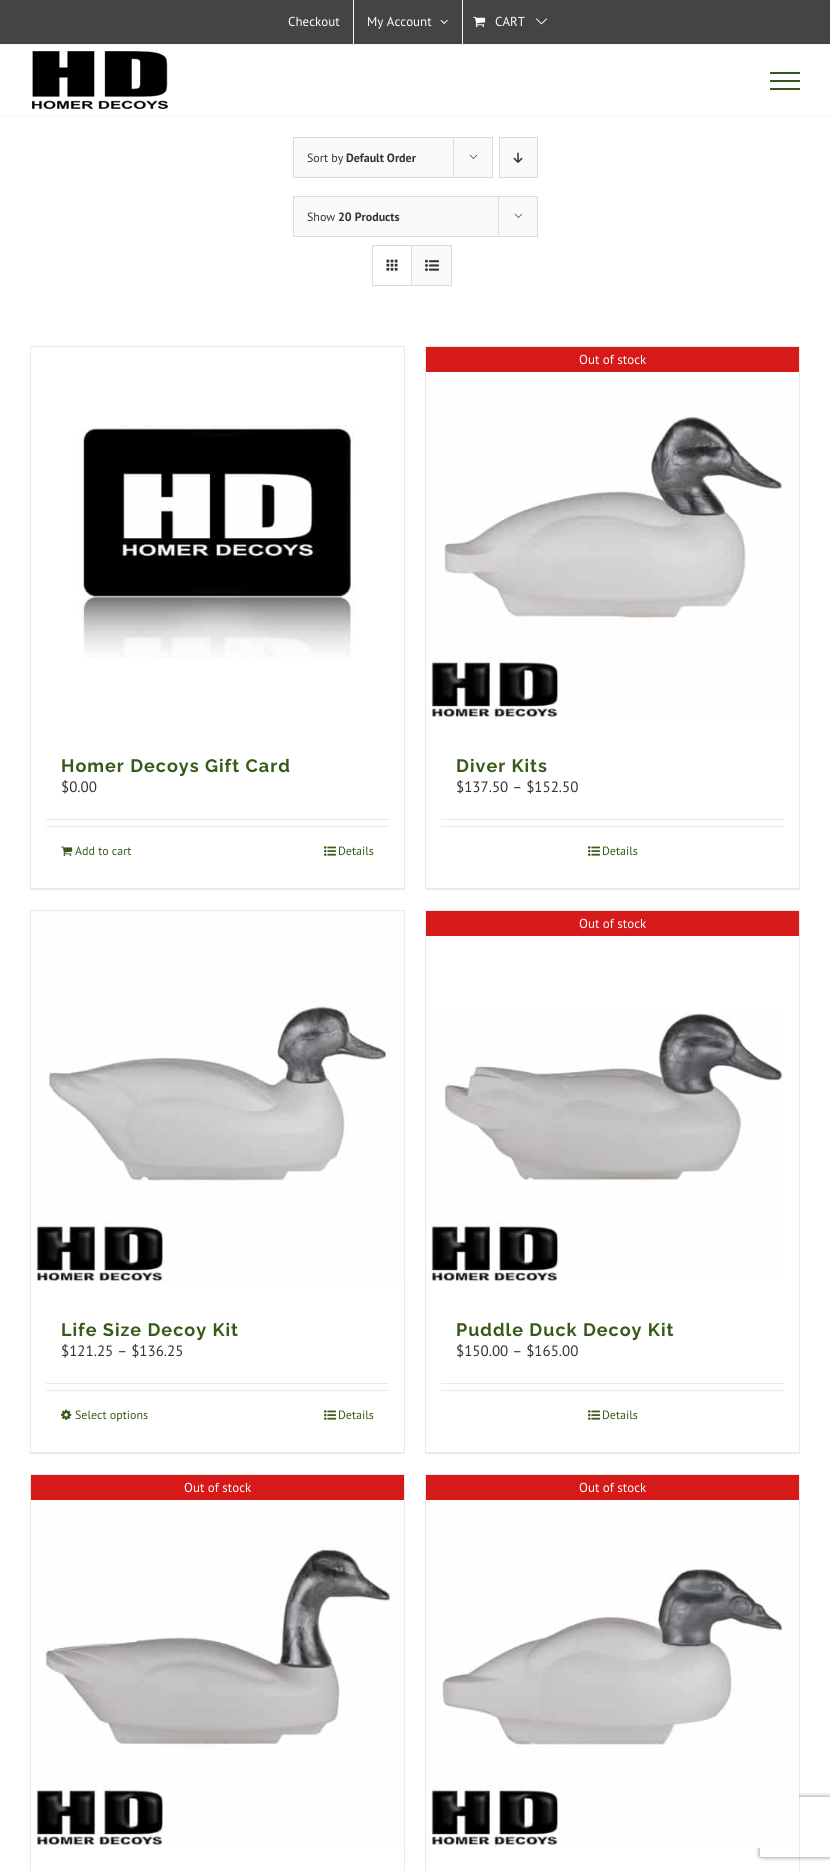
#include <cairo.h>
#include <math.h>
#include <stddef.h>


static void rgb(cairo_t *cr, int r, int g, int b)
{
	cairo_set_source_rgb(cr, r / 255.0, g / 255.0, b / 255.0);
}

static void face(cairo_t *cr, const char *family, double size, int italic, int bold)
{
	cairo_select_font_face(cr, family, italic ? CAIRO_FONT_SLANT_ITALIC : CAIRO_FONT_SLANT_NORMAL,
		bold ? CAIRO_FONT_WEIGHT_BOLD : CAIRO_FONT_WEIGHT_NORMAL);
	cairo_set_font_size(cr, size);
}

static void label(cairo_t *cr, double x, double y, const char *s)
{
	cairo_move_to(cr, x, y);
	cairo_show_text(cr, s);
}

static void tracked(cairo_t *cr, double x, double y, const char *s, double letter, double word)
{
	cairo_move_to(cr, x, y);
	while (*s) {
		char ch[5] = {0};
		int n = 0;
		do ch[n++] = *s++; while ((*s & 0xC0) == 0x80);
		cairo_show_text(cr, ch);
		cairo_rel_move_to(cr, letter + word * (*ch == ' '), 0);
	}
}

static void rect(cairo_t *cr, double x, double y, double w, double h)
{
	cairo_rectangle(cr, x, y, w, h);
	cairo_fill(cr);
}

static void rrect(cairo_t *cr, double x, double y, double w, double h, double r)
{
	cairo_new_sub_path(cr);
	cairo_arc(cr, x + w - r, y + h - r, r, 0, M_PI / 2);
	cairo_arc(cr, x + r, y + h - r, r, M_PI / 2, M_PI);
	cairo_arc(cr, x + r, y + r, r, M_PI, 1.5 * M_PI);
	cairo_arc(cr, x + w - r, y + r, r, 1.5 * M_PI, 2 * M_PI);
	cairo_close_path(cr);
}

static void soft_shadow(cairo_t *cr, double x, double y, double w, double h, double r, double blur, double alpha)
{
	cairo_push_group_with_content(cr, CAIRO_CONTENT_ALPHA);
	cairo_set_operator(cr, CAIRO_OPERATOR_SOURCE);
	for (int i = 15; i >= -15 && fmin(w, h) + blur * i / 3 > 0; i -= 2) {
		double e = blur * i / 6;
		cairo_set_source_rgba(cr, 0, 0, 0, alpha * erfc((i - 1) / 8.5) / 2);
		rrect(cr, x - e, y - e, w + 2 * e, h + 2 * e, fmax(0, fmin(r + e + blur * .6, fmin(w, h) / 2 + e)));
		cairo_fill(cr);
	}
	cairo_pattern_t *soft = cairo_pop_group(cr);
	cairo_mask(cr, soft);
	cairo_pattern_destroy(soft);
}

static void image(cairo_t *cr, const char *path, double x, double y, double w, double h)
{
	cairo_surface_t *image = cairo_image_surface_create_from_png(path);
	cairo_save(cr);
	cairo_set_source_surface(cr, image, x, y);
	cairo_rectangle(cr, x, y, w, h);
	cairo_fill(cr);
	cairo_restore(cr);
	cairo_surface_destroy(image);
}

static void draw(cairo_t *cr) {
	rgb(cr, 255, 255, 255);
	cairo_paint(cr);
	rgb(cr, 68, 68, 68);
	rect(cr, 0, 0, 830, 44);
	rgb(cr, 245, 245, 245);
	rect(cr, 0, 44, 830, 1);
	face(cr, "PT Sans", 13, 0, 0);
	rgb(cr, 255, 255, 255);
	label(cr, 288, 26, "Checkout");
	rgb(cr, 245, 245, 245);
	rect(cr, 353, 0, 1, 44);
	rgb(cr, 255, 255, 255);
	label(cr, 367, 26, "My Account");
	image(cr, "image0.png", 440, 19, 8, 5);
	rgb(cr, 245, 245, 245);
	rect(cr, 462, 0, 1, 44);
	image(cr, "image1.png", 473, 16, 13, 11);
	rgb(cr, 255, 255, 255);
	label(cr, 495, 26, "CART");
	image(cr, "image2.png", 536, 18, 11, 7);
	rgb(cr, 245, 245, 245);
	rect(cr, 0, 116, 830, 1);
	image(cr, "image3.png", 32, 51, 136, 58);
	rgb(cr, 55, 90, 24);
	rect(cr, 770, 72, 30, 2);
	rect(cr, 770, 80, 30, 2);
	rect(cr, 770, 88, 30, 2);
	rgb(cr, 251, 250, 249);
	cairo_rectangle(cr, 293.5, 137.5, 199, 40);
	cairo_fill_preserve(cr);
	rgb(cr, 219, 219, 219);
	cairo_set_line_width(cr, 1);
	cairo_stroke(cr);
	face(cr, "PT Sans", 12, 0, 0);
	rgb(cr, 51, 51, 51);
	label(cr, 307, 162, "Sort by");
	face(cr, "PT Sans", 12, 0, 1);
	label(cr, 346, 162, "Default Order");
	rgb(cr, 219, 219, 219);
	rect(cr, 453, 137, 1, 39);
	image(cr, "image4.png", 469, 154, 9, 5);
	rgb(cr, 251, 250, 249);
	cairo_rectangle(cr, 499.5, 137.5, 38, 40);
	cairo_fill_preserve(cr);
	rgb(cr, 219, 219, 219);
	cairo_stroke(cr);
	image(cr, "image5.png", 513, 152, 10, 11);
	rgb(cr, 251, 250, 249);
	cairo_rectangle(cr, 293.5, 196.5, 244, 40);
	cairo_fill_preserve(cr);
	rgb(cr, 219, 219, 219);
	cairo_stroke(cr);
	face(cr, "PT Sans", 12, 0, 0);
	rgb(cr, 51, 51, 51);
	label(cr, 307, 221, "Show");
	face(cr, "PT Sans", 12, 0, 1);
	label(cr, 338, 221, "20 Products");
	rgb(cr, 219, 219, 219);
	rect(cr, 498, 196, 1, 39);
	image(cr, "image4.png", 514, 213, 9, 5);
	cairo_rectangle(cr, 372.5, 245.5, 79, 40);
	cairo_stroke(cr);
	rect(cr, 411, 246, 1, 39);
	image(cr, "image6.png", 386, 259, 12, 12);
	rgb(cr, 251, 250, 249);
	rect(cr, 412, 246, 39, 39);
	image(cr, "image7.png", 425, 259, 14, 13);
	rgb(cr, 235, 234, 234);
	rect(cr, 30, 346, 375, 1);
	rect(cr, 404, 346, 1, 544);
	rect(cr, 30, 888, 375, 2);
	rect(cr, 30, 346, 1, 544);
	image(cr, "image8.png", 79, 425, 275, 233);
	face(cr, "Raleway Thin", 18, 0, 0);
	rgb(cr, 55, 90, 24);
	tracked(cr, 61, 772, "Homer Decoys Gift Card", 1, 0);
	face(cr, "PT Sans", 15, 0, 0);
	rgb(cr, 51, 51, 51);
	label(cr, 61, 792, "$0.00");
	rgb(cr, 235, 234, 234);
	rect(cr, 46, 819, 343, 1);
	rect(cr, 46, 826, 343, 1);
	image(cr, "image9.png", 61, 846, 12, 10);
	face(cr, "PT Sans", 12, 0, 0);
	rgb(cr, 55, 90, 24);
	label(cr, 75, 855, "Add to cart");
	image(cr, "image10.png", 324, 846, 12, 10);
	label(cr, 338, 855, "Details");
	rgb(cr, 235, 234, 234);
	rect(cr, 425, 346, 375, 1);
	rect(cr, 799, 346, 1, 544);
	rect(cr, 425, 888, 375, 2);
	rect(cr, 425, 346, 1, 544);
	rgb(cr, 214, 25, 25);
	rect(cr, 426, 347, 373, 25);
	face(cr, "PT Sans", 13, 0, 0);
	rgb(cr, 255, 255, 255);
	label(cr, 579, 364, "Out of stock");
	image(cr, "image11.png", 426, 372, 373, 348);
	face(cr, "Raleway Thin", 18, 0, 0);
	rgb(cr, 55, 90, 24);
	tracked(cr, 456, 772, "Diver Kits", 1, 0);
	face(cr, "PT Sans", 15, 0, 0);
	rgb(cr, 51, 51, 51);
	label(cr, 456, 792, "$137.50 – $152.50");
	rgb(cr, 235, 234, 234);
	rect(cr, 441, 819, 343, 1);
	rect(cr, 441, 826, 343, 1);
	image(cr, "image10.png", 588, 846, 12, 10);
	face(cr, "PT Sans", 12, 0, 0);
	rgb(cr, 55, 90, 24);
	label(cr, 602, 855, "Details");
	rgb(cr, 235, 234, 234);
	rect(cr, 30, 910, 375, 1);
	rect(cr, 404, 910, 1, 544);
	rect(cr, 30, 1452, 375, 2);
	rect(cr, 30, 910, 1, 544);
	image(cr, "image12.png", 31, 911, 373, 373);
	face(cr, "Raleway Thin", 18, 0, 0);
	rgb(cr, 55, 90, 24);
	tracked(cr, 61, 1336, "Life Size Decoy Kit", 1, 0);
	face(cr, "PT Sans", 15, 0, 0);
	rgb(cr, 51, 51, 51);
	label(cr, 61, 1356, "$121.25 – $136.25");
	rgb(cr, 235, 234, 234);
	rect(cr, 46, 1383, 343, 1);
	rect(cr, 46, 1390, 343, 1);
	image(cr, "image13.png", 61, 1409, 11, 11);
	face(cr, "PT Sans", 12, 0, 0);
	rgb(cr, 55, 90, 24);
	label(cr, 75, 1419, "Select options");
	image(cr, "image10.png", 324, 1410, 12, 10);
	label(cr, 338, 1419, "Details");
	rgb(cr, 235, 234, 234);
	rect(cr, 425, 910, 375, 1);
	rect(cr, 799, 910, 1, 544);
	rect(cr, 425, 1452, 375, 2);
	rect(cr, 425, 910, 1, 544);
	rgb(cr, 215, 26, 26);
	rect(cr, 426, 911, 373, 25);
	face(cr, "PT Sans", 13, 0, 0);
	rgb(cr, 255, 255, 255);
	label(cr, 579, 928, "Out of stock");
	image(cr, "image14.png", 431, 1012, 353, 269);
	face(cr, "Raleway Thin", 18, 0, 0);
	rgb(cr, 55, 90, 24);
	tracked(cr, 456, 1336, "Puddle Duck Decoy Kit", 1, 0);
	face(cr, "PT Sans", 15, 0, 0);
	rgb(cr, 51, 51, 51);
	label(cr, 456, 1356, "$150.00 – $165.00");
	rgb(cr, 235, 234, 234);
	rect(cr, 441, 1383, 343, 1);
	rect(cr, 441, 1390, 343, 1);
	image(cr, "image10.png", 588, 1410, 12, 10);
	face(cr, "PT Sans", 12, 0, 0);
	rgb(cr, 55, 90, 24);
	label(cr, 602, 1419, "Details");
	rgb(cr, 235, 234, 234);
	rect(cr, 30, 1474, 375, 1);
	rect(cr, 404, 1474, 1, 397);
	rect(cr, 30, 1474, 1, 397);
	rgb(cr, 214, 25, 25);
	rect(cr, 31, 1475, 373, 25);
	face(cr, "PT Sans", 13, 0, 0);
	rgb(cr, 255, 255, 255);
	label(cr, 184, 1492, "Out of stock");
	image(cr, "image15.png", 31, 1500, 373, 348);
	rgb(cr, 235, 234, 234);
	rect(cr, 425, 1474, 375, 1);
	rect(cr, 799, 1474, 1, 397);
	rect(cr, 425, 1474, 1, 397);
	rgb(cr, 214, 25, 25);
	rect(cr, 426, 1475, 373, 25);
	rgb(cr, 255, 255, 255);
	label(cr, 579, 1492, "Out of stock");
	cairo_save(cr);
	cairo_set_fill_rule(cr, CAIRO_FILL_RULE_EVEN_ODD);
	cairo_new_path(cr);
	cairo_move_to(cr, 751, 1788);
	cairo_line_to(cr, 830, 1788);
	cairo_line_to(cr, 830, 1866);
	cairo_line_to(cr, 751, 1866);
	cairo_close_path(cr);
	cairo_move_to(cr, 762, 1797);
	cairo_line_to(cr, 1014, 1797);
	cairo_curve_to(cr, 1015, 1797, 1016, 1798, 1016, 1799);
	cairo_line_to(cr, 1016, 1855);
	cairo_curve_to(cr, 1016, 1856, 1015, 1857, 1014, 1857);
	cairo_line_to(cr, 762, 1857);
	cairo_curve_to(cr, 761, 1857, 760, 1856, 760, 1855);
	cairo_line_to(cr, 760, 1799);
	cairo_curve_to(cr, 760, 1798, 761, 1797, 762, 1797);
	cairo_close_path(cr);
	cairo_clip(cr);
	rgb(cr, 128, 128, 128);
	soft_shadow(cr, 760, 1797, 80, 60, 2, 2.5, 1);
	cairo_restore(cr);
	image(cr, "image16.png", 426, 1500, 373, 348);
}

int main(void) {
	cairo_surface_t *surface = cairo_image_surface_create(CAIRO_FORMAT_RGB24, 830, 1871);
	cairo_t *cr = cairo_create(surface);
	cairo_font_options_t *options = cairo_font_options_create();
	cairo_font_options_set_hint_metrics(options, CAIRO_HINT_METRICS_OFF);
	cairo_font_options_set_hint_style(options, CAIRO_HINT_STYLE_NONE);
	cairo_set_font_options(cr, options);
	cairo_set_miter_limit(cr, 4);
	draw(cr);
	cairo_surface_write_to_png(surface, "render.png");
	cairo_font_options_destroy(options);
	cairo_destroy(cr);
	cairo_surface_destroy(surface);
	return 0;
}
